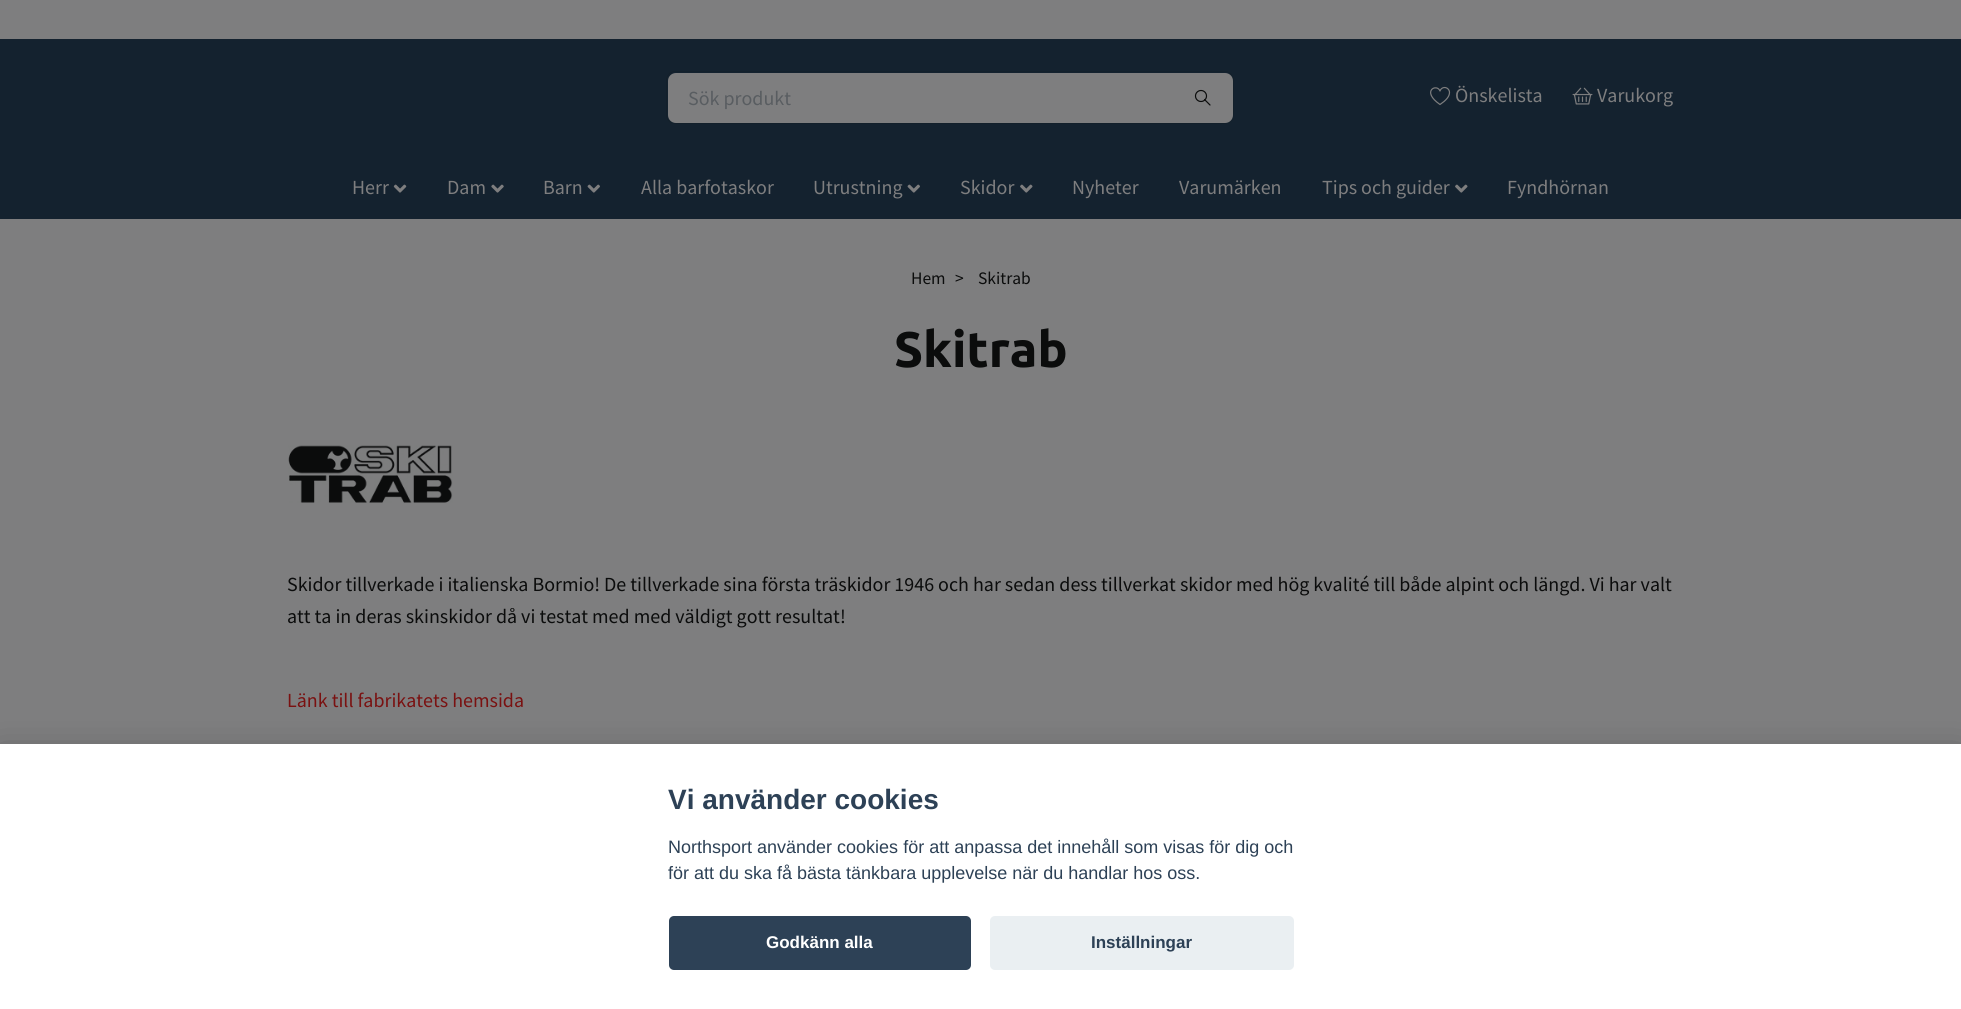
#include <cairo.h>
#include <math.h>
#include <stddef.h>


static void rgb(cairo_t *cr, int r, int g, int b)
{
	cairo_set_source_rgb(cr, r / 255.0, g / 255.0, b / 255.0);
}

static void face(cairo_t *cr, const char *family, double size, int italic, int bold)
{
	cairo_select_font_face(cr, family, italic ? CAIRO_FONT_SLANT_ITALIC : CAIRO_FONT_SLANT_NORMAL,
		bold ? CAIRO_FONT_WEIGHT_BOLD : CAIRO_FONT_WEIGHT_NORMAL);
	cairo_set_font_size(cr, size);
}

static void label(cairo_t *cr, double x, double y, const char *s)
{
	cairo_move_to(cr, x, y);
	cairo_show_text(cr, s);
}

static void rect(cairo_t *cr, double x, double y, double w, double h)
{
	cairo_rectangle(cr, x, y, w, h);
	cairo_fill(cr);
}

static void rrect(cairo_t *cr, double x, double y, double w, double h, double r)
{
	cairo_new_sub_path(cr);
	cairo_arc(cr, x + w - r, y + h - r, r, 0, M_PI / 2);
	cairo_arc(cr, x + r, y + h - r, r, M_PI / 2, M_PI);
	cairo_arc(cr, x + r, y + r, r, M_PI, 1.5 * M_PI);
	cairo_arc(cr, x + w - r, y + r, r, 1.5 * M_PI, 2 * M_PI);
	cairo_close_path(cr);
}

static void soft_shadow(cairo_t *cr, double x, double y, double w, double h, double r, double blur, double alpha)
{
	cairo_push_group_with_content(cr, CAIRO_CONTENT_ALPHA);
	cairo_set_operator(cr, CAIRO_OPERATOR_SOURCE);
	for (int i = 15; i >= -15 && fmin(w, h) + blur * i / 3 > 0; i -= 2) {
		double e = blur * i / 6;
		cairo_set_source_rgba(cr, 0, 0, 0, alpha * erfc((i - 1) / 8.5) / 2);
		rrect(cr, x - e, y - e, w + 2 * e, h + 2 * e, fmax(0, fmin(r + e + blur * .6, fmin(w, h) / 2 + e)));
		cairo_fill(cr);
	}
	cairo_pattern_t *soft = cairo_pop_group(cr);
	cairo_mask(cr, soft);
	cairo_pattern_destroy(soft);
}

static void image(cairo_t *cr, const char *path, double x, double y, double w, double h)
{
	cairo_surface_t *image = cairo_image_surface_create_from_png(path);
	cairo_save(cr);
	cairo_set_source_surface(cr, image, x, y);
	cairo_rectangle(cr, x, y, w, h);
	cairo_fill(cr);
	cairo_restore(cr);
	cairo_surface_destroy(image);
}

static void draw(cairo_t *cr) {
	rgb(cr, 126, 126, 127);
	cairo_paint(cr);
	rgb(cr, 20, 34, 47);
	rect(cr, 0, 39, 1961, 180);
	rrect(cr, 666.5, 71.5, 567, 52, 8.5);
	rgb(cr, 19, 32, 43);
	cairo_set_line_width(cr, 1);
	cairo_stroke(cr);
	rgb(cr, 126, 126, 127);
	cairo_new_path(cr);
	cairo_move_to(cr, 676, 73);
	cairo_line_to(cr, 1173, 73);
	cairo_line_to(cr, 1173, 123);
	cairo_line_to(cr, 676, 123);
	cairo_curve_to(cr, 671.5, 123, 668, 119.5, 668, 115);
	cairo_line_to(cr, 668, 81);
	cairo_curve_to(cr, 668, 76.5, 671.5, 73, 676, 73);
	cairo_close_path(cr);
	cairo_fill(cr);
	face(cr, "Source Sans Pro", 20, 0, 0);
	rgb(cr, 89, 93, 97);
	label(cr, 688, 105, "Sök produkt");
	rgb(cr, 126, 126, 127);
	cairo_new_path(cr);
	cairo_move_to(cr, 1173, 73);
	cairo_line_to(cr, 1225, 73);
	cairo_curve_to(cr, 1229.5, 73, 1233, 76.5, 1233, 81);
	cairo_line_to(cr, 1233, 115);
	cairo_curve_to(cr, 1233, 119.5, 1229.5, 123, 1225, 123);
	cairo_line_to(cr, 1173, 123);
	cairo_close_path(cr);
	cairo_fill(cr);
	cairo_new_path(cr);
	cairo_move_to(cr, 1204.5, 99.5);
	cairo_line_to(cr, 1210, 105);
	rgb(cr, 11, 12, 12);
	cairo_set_line_width(cr, 1.2);
	cairo_set_line_cap(cr, CAIRO_LINE_CAP_ROUND);
	cairo_set_line_join(cr, CAIRO_LINE_JOIN_ROUND);
	cairo_stroke(cr);
	cairo_arc(cr, 1201, 96, 5.5, 0, 2 * M_PI);
	cairo_set_line_cap(cr, CAIRO_LINE_CAP_BUTT);
	cairo_set_line_join(cr, CAIRO_LINE_JOIN_MITER);
	cairo_stroke(cr);
	cairo_new_path(cr);
	cairo_move_to(cr, 1444.5, 87.5);
	cairo_curve_to(cr, 1442.5, 87.5, 1440.5, 89, 1440, 91);
	cairo_curve_to(cr, 1437, 83, 1420.5, 91, 1440, 104.5);
	cairo_curve_to(cr, 1446, 100.5, 1449.5, 96.5, 1449.5, 92.5);
	cairo_curve_to(cr, 1449.5, 90, 1447.5, 87.5, 1444.5, 87.5);
	cairo_close_path(cr);
	rgb(cr, 126, 126, 127);
	cairo_set_line_cap(cr, CAIRO_LINE_CAP_ROUND);
	cairo_set_line_join(cr, CAIRO_LINE_JOIN_ROUND);
	cairo_stroke(cr);
	label(cr, 1455, 102, "Önskelista");
	image(cr, "image0.png", 1572, 87, 21, 18);
	label(cr, 1597, 102, "Varukorg");
	label(cr, 352, 194, "Herr");
	image(cr, "image1.png", 393, 184, 14, 9);
	label(cr, 447, 194, "Dam");
	image(cr, "image2.png", 491, 184, 13, 9);
	label(cr, 543, 194, "Barn");
	image(cr, "image3.png", 587, 184, 13, 9);
	label(cr, 641, 194, "Alla barfotaskor");
	label(cr, 813, 194, "Utrustning");
	image(cr, "image3.png", 907, 184, 13, 9);
	label(cr, 960, 194, "Skidor");
	image(cr, "image4.png", 1020, 184, 13, 9);
	label(cr, 1072, 194, "Nyheter");
	label(cr, 1179, 194, "Varumärken");
	label(cr, 1322, 194, "Tips och guider");
	image(cr, "image4.png", 1455, 184, 13, 9);
	label(cr, 1507, 194, "Fyndhörnan");
	face(cr, "Source Sans Pro", 17.5, 0, 0);
	rgb(cr, 11, 12, 12);
	label(cr, 911, 284, "Hem");
	label(cr, 955, 284, ">");
	label(cr, 978, 284, "Skitrab");
	face(cr, "Ubuntu", 50, 0, 1);
	label(cr, 894, 367, "Skitrab");
	image(cr, "image5.png", 288, 445, 165, 58);
	face(cr, "Source Sans Pro", 20, 0, 0);
	label(cr, 287, 591, "Skidor tillverkade i italienska Bormio! De tillverkade sina första träskidor 1946 och har sedan dess tillverkat skidor med hög kvalité till både alpint och längd. Vi har valt");
	label(cr, 287, 623, "att ta in deras skinskidor då vi testat med med väldigt gott resultat!");
	rgb(cr, 122, 17, 17);
	label(cr, 287, 707, "Länk till fabrikatets hemsida");
	rgb(cr, 2, 2, 3);
	soft_shadow(cr, 0, 756, 1961, 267, 0, 19, 0.28);
	rgb(cr, 255, 255, 255);
	rect(cr, 0, 744, 1961, 265);
	face(cr, "Liberation Sans", 28, 0, 1);
	rgb(cr, 45, 65, 86);
	label(cr, 668, 809, "Vi använder cookies");
	face(cr, "Liberation Sans", 18, 0, 0);
	label(cr, 668, 853, "Northsport använder cookies för att anpassa det innehåll som visas för dig och");
	label(cr, 668, 879, "för att du ska få bästa tänkbara upplevelse när du handlar hos oss.");
	rrect(cr, 669, 916, 302, 54, 5);
	cairo_fill(cr);
	face(cr, "Liberation Sans", 17, 0, 1);
	rgb(cr, 255, 255, 255);
	label(cr, 766, 948, "Godkänn alla");
	rgb(cr, 234, 239, 242);
	rrect(cr, 990, 916, 304, 54, 5);
	cairo_fill(cr);
	rgb(cr, 45, 65, 86);
	label(cr, 1091, 948, "Inställningar");
}

int main(void) {
	cairo_surface_t *surface = cairo_image_surface_create(CAIRO_FORMAT_RGB24, 1961, 1009);
	cairo_t *cr = cairo_create(surface);
	cairo_font_options_t *options = cairo_font_options_create();
	cairo_font_options_set_hint_metrics(options, CAIRO_HINT_METRICS_OFF);
	cairo_font_options_set_hint_style(options, CAIRO_HINT_STYLE_NONE);
	cairo_set_font_options(cr, options);
	cairo_set_miter_limit(cr, 4);
	draw(cr);
	cairo_surface_write_to_png(surface, "render.png");
	cairo_font_options_destroy(options);
	cairo_destroy(cr);
	cairo_surface_destroy(surface);
	return 0;
}
